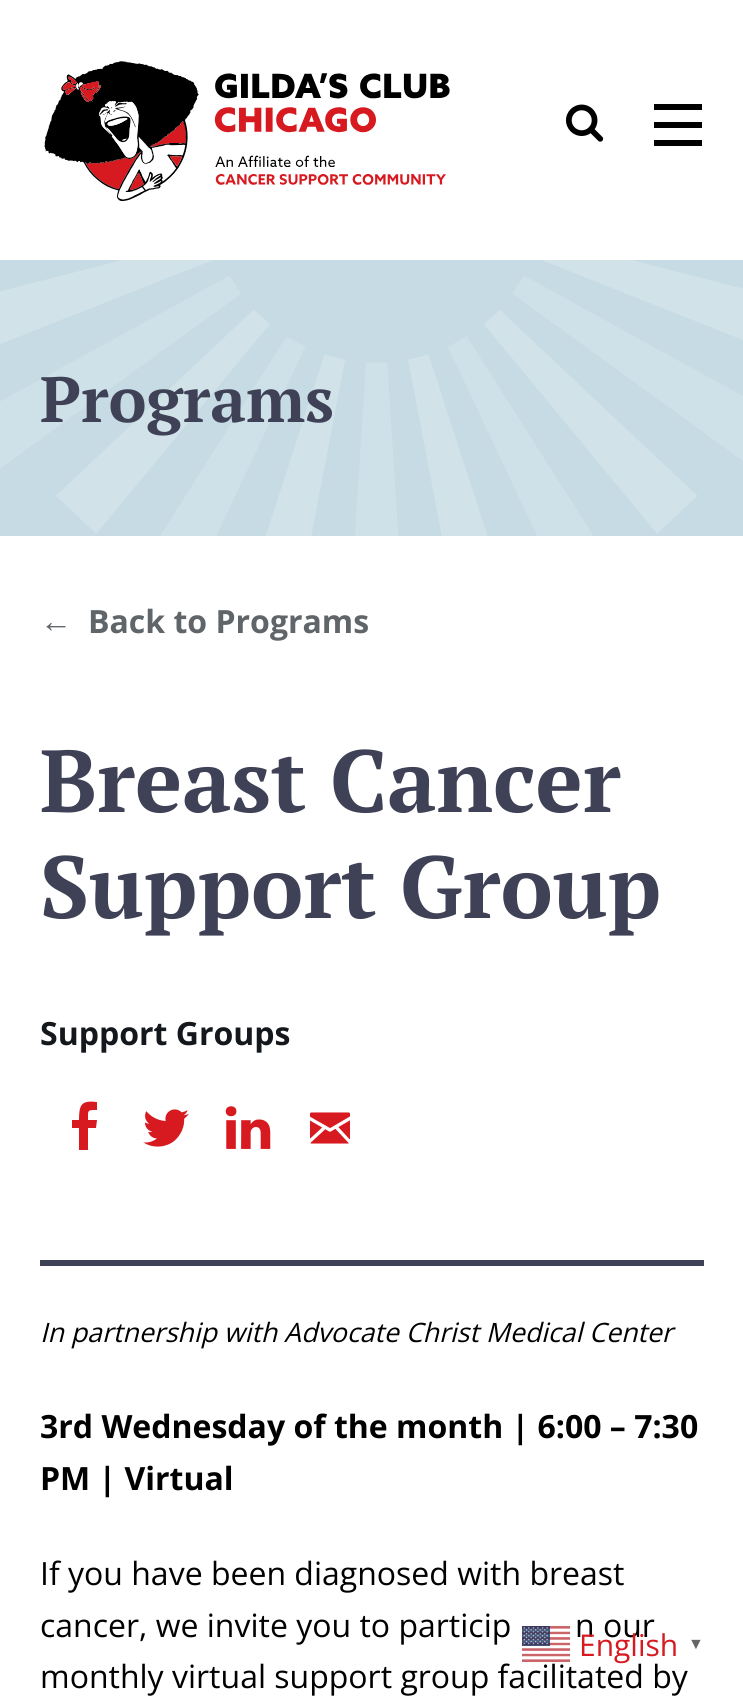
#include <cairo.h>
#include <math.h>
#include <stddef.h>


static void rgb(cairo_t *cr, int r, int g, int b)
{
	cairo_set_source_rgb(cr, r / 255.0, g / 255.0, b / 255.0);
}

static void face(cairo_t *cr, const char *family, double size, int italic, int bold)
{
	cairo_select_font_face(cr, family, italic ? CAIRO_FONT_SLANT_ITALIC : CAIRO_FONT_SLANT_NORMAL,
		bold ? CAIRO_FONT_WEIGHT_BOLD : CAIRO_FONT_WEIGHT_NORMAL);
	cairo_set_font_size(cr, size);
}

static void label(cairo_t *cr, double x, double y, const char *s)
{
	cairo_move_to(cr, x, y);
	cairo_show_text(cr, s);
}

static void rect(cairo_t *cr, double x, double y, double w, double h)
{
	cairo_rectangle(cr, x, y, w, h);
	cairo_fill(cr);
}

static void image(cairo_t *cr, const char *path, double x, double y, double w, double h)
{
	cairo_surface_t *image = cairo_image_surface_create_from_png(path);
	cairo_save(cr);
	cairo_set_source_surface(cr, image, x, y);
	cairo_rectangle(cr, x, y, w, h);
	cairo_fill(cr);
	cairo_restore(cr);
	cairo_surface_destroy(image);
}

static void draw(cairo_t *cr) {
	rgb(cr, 255, 255, 255);
	cairo_paint(cr);
	image(cr, "image0.png", 44, 61, 406, 140);
	image(cr, "image1.png", 566, 104, 38, 38);
	rgb(cr, 0, 0, 0);
	rect(cr, 654, 104, 48, 6);
	rect(cr, 654, 122, 48, 6);
	rect(cr, 654, 140, 48, 6);
	rgb(cr, 198, 219, 228);
	rect(cr, 0, 260, 743, 276);
	image(cr, "image2.png", 0, 260, 743, 276);
	face(cr, "PT Serif", 64, 0, 1);
	rgb(cr, 63, 65, 86);
	label(cr, 40, 422, "Programs");
	face(cr, "Liberation Sans", 32, 0, 1);
	rgb(cr, 95, 101, 105);
	label(cr, 40, 632, "←");
	face(cr, "Open Sans", 32, 0, 1);
	label(cr, 88, 633, "Back to Programs");
	rgb(cr, 63, 65, 86);
	rect(cr, 40, 1260, 664, 6);
	face(cr, "PT Serif", 88, 0, 1);
	label(cr, 40, 812, "Breast Cancer");
	label(cr, 40, 918, "Support Group");
	face(cr, "Open Sans", 32, 0, 1);
	rgb(cr, 20, 24, 28);
	label(cr, 40, 1045, "Support Groups");
	rgb(cr, 215, 25, 32);
	cairo_new_path(cr);
	cairo_move_to(cr, 97, 1102);
	cairo_curve_to(cr, 81, 1100, 79, 1105, 79, 1120);
	cairo_line_to(cr, 72, 1120);
	cairo_line_to(cr, 72, 1128);
	cairo_line_to(cr, 79, 1128);
	cairo_line_to(cr, 79, 1150);
	cairo_line_to(cr, 88, 1150);
	cairo_line_to(cr, 88, 1128);
	cairo_line_to(cr, 96, 1128);
	cairo_line_to(cr, 97, 1120);
	cairo_line_to(cr, 88, 1120);
	cairo_curve_to(cr, 88, 1110, 87, 1110, 97, 1110);
	cairo_close_path(cr);
	cairo_fill(cr);
	image(cr, "image3.png", 143, 1109, 46, 38);
	image(cr, "image4.png", 225, 1106, 46, 43);
	image(cr, "image5.png", 310, 1112, 40, 32);
	face(cr, "Open Sans", 26.7, 1, 0);
	rgb(cr, 0, 0, 0);
	label(cr, 40, 1342, "In partnership with Advocate Christ Medical Center");
	face(cr, "Open Sans", 32, 0, 1);
	label(cr, 40, 1438, "3rd Wednesday of the month | 6:00 – 7:30");
	label(cr, 40, 1490, "PM | Virtual");
	face(cr, "Open Sans", 32, 0, 0);
	label(cr, 40, 1585, "If you have been diagnosed with breast");
	label(cr, 40, 1637, "cancer, we invite you to particip");
	label(cr, 575, 1637, "n our");
	label(cr, 40, 1688, "monthly virtual support group facilitated by");
	image(cr, "image6.png", 522, 1626, 48, 36);
	face(cr, "Open Sans", 30, 0, 0);
	rgb(cr, 215, 25, 32);
	label(cr, 579, 1656, "English");
	face(cr, "Liberation Sans", 16, 0, 1);
	rgb(cr, 102, 102, 102);
	label(cr, 688, 1649, "▼");
}

int main(void) {
	cairo_surface_t *surface = cairo_image_surface_create(CAIRO_FORMAT_RGB24, 743, 1697);
	cairo_t *cr = cairo_create(surface);
	cairo_font_options_t *options = cairo_font_options_create();
	cairo_font_options_set_hint_metrics(options, CAIRO_HINT_METRICS_OFF);
	cairo_font_options_set_hint_style(options, CAIRO_HINT_STYLE_NONE);
	cairo_set_font_options(cr, options);
	cairo_set_miter_limit(cr, 4);
	draw(cr);
	cairo_surface_write_to_png(surface, "render.png");
	cairo_font_options_destroy(options);
	cairo_destroy(cr);
	cairo_surface_destroy(surface);
	return 0;
}
